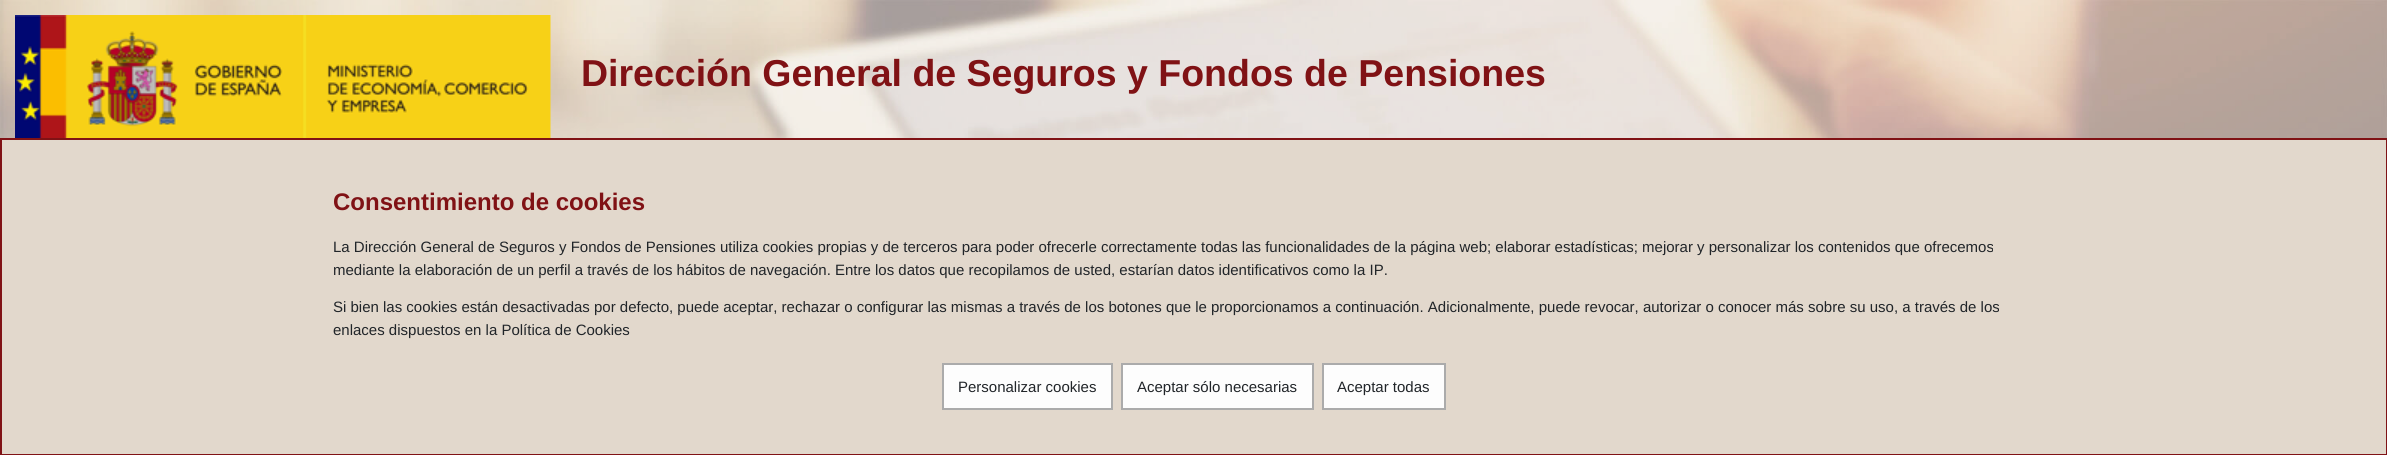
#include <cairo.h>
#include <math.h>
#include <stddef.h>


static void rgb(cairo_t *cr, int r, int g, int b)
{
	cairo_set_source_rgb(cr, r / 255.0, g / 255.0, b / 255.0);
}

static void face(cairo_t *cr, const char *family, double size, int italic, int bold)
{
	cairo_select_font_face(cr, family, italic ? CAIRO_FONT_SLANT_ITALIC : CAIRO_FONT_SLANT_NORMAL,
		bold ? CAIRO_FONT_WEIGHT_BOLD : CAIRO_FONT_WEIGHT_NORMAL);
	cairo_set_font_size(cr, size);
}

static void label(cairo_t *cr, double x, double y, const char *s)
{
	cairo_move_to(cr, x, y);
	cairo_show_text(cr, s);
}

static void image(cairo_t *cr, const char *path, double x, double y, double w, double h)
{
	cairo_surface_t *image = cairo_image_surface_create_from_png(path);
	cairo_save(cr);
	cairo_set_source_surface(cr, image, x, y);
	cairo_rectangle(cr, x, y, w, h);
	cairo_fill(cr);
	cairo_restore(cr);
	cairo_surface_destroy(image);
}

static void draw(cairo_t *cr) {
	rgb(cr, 255, 255, 255);
	cairo_paint(cr);
	image(cr, "image0.png", 0, 0, 2387, 138);
	image(cr, "image1.png", 15, 15, 536, 123);
	face(cr, "Liberation Sans", 37.5, 0, 1);
	rgb(cr, 128, 18, 21);
	label(cr, 581, 86, "Dirección General de Seguros y Fondos de Pensiones");
	rgb(cr, 226, 216, 204);
	cairo_rectangle(cr, 1, 139, 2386, 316);
	cairo_fill_preserve(cr);
	rgb(cr, 128, 18, 21);
	cairo_stroke(cr);
	face(cr, "Liberation Sans", 24, 0, 1);
	label(cr, 333, 210, "Consentimiento de cookies");
	face(cr, "Liberation Sans", 15, 0, 0);
	rgb(cr, 33, 37, 41);
	label(cr, 333, 252, "La Dirección General de Seguros y Fondos de Pensiones utiliza cookies propias y de terceros para poder ofrecerle correctamente todas las funcionalidades de la página web; elaborar estadísticas; mejorar y personalizar los contenidos que ofrecemos");
	label(cr, 333, 275, "mediante la elaboración de un perfil a través de los hábitos de navegación. Entre los datos que recopilamos de usted, estarían datos identificativos como la IP.");
	label(cr, 333, 312, "Si bien las cookies están desactivadas por defecto, puede aceptar, rechazar o configurar las mismas a través de los botones que le proporcionamos a continuación. Adicionalmente, puede revocar, autorizar o conocer más sobre su uso, a través de los");
	label(cr, 333, 335, "enlaces dispuestos en la Política de Cookies");
	rgb(cr, 253, 253, 253);
	cairo_rectangle(cr, 943, 364, 169, 45);
	cairo_fill_preserve(cr);
	rgb(cr, 171, 171, 171);
	cairo_stroke(cr);
	rgb(cr, 33, 37, 41);
	label(cr, 958, 392, "Personalizar cookies");
	rgb(cr, 253, 253, 253);
	cairo_rectangle(cr, 1122, 364, 191, 45);
	cairo_fill_preserve(cr);
	rgb(cr, 171, 171, 171);
	cairo_stroke(cr);
	rgb(cr, 33, 37, 41);
	label(cr, 1137, 392, "Aceptar sólo necesarias");
	rgb(cr, 253, 253, 253);
	cairo_rectangle(cr, 1323, 364, 122, 45);
	cairo_fill_preserve(cr);
	rgb(cr, 171, 171, 171);
	cairo_stroke(cr);
	rgb(cr, 33, 37, 41);
	label(cr, 1337, 392, "Aceptar todas");
}

int main(void) {
	cairo_surface_t *surface = cairo_image_surface_create(CAIRO_FORMAT_RGB24, 2387, 455);
	cairo_t *cr = cairo_create(surface);
	cairo_font_options_t *options = cairo_font_options_create();
	cairo_font_options_set_hint_metrics(options, CAIRO_HINT_METRICS_OFF);
	cairo_font_options_set_hint_style(options, CAIRO_HINT_STYLE_NONE);
	cairo_set_font_options(cr, options);
	cairo_set_miter_limit(cr, 4);
	draw(cr);
	cairo_surface_write_to_png(surface, "render.png");
	cairo_font_options_destroy(options);
	cairo_destroy(cr);
	cairo_surface_destroy(surface);
	return 0;
}
